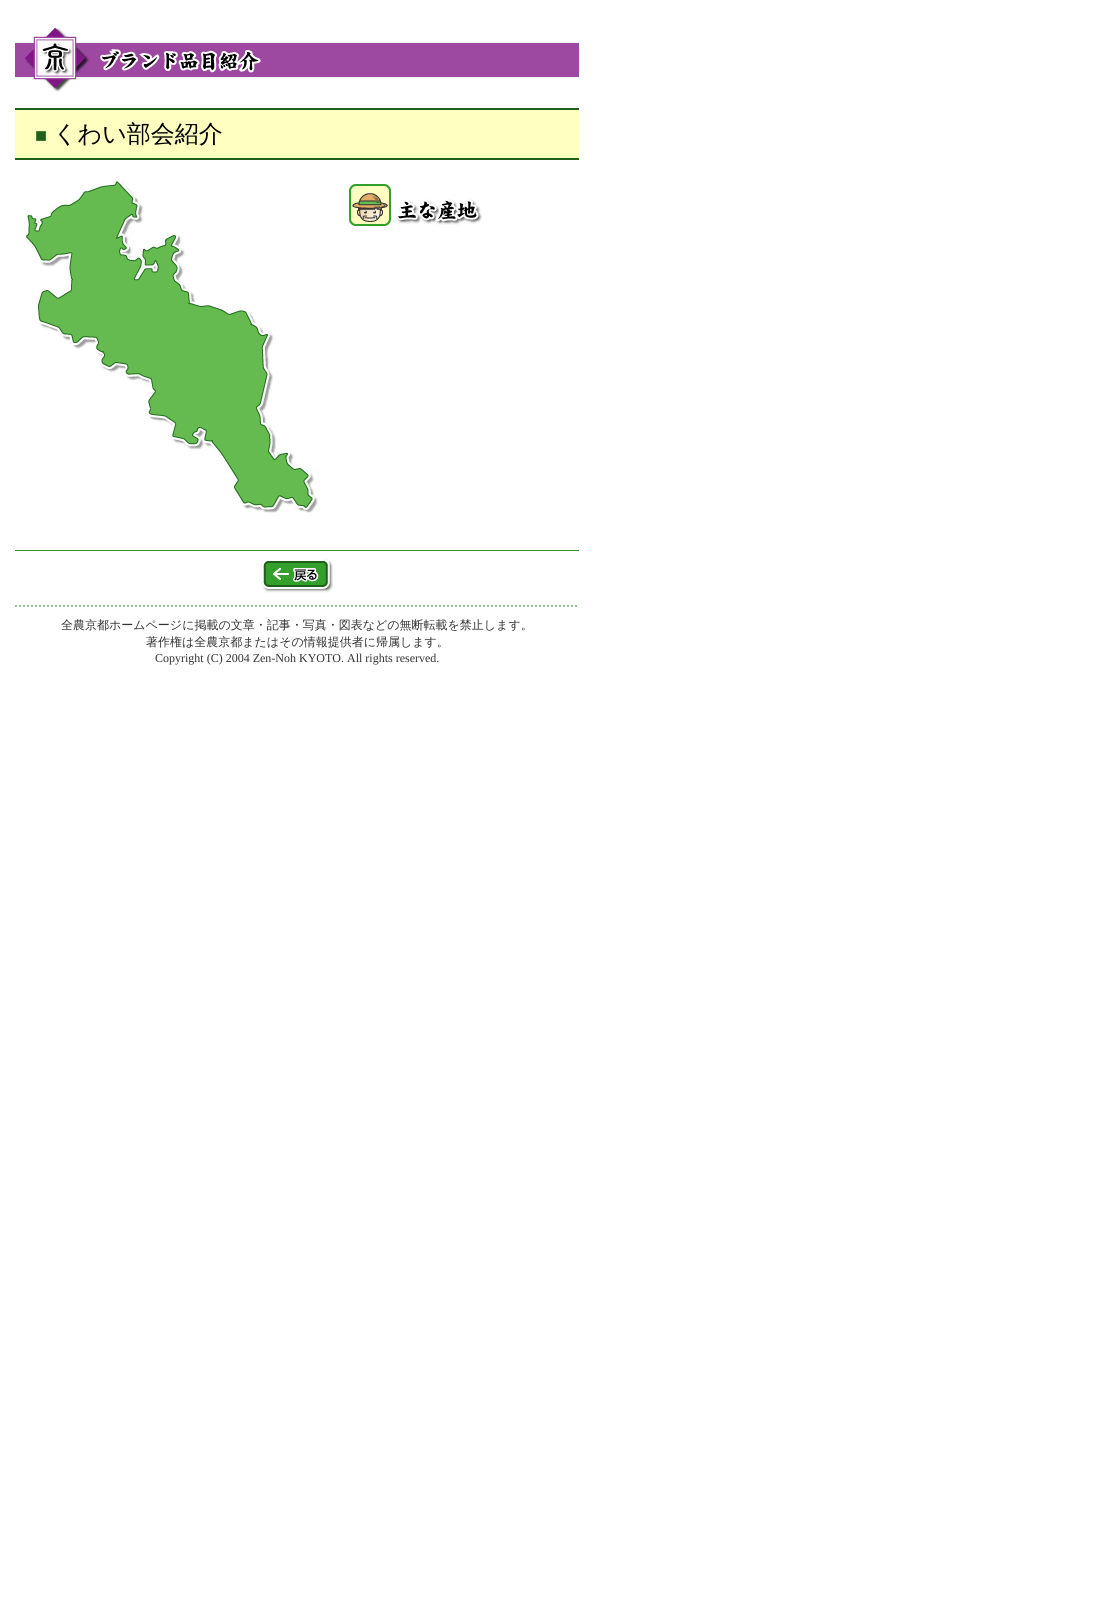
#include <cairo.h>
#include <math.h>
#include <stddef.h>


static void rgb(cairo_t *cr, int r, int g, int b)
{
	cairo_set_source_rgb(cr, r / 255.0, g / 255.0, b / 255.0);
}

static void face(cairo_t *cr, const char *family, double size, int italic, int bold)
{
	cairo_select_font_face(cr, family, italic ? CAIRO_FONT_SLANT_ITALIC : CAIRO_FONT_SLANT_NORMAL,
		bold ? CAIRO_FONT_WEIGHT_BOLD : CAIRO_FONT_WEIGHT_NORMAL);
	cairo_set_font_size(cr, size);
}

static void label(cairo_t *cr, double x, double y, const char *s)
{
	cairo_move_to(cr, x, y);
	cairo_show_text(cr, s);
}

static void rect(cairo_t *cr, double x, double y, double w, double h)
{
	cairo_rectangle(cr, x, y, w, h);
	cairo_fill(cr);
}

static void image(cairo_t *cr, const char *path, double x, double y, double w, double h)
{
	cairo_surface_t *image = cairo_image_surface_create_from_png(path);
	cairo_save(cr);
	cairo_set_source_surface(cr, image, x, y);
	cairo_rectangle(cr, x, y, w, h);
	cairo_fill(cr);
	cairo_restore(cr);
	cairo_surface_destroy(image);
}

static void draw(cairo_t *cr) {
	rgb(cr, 255, 255, 255);
	cairo_paint(cr);
	image(cr, "image0.png", 15, 28, 564, 64);
	rgb(cr, 31, 96, 27);
	rect(cr, 15, 108, 564, 2);
	rgb(cr, 255, 255, 191);
	rect(cr, 15, 110, 564, 48);
	face(cr, "Liberation Serif", 20, 0, 0);
	rgb(cr, 31, 96, 27);
	label(cr, 35, 142, "■");
	face(cr, "WenQuanYi Zen Hei Medium", 24, 0, 0);
	rgb(cr, 0, 0, 0);
	label(cr, 53, 142, "くわい部会紹介");
	rgb(cr, 31, 96, 27);
	rect(cr, 15, 158, 564, 2);
	image(cr, "image1.png", 26, 181, 292, 332);
	image(cr, "image2.png", 349, 184, 133, 42);
	rgb(cr, 46, 144, 39);
	rect(cr, 15, 550, 564, 1);
	image(cr, "image3.png", 261, 559, 72, 34);
	image(cr, "image4.png", 15, 605, 562, 2);
	face(cr, "WenQuanYi Zen Hei Medium", 12, 0, 0);
	rgb(cr, 50, 50, 50);
	label(cr, 61, 629, "全農京都ホームページに掲載の文章・記事・写真・図表などの無断転載を禁止します。");
	label(cr, 146, 646, "著作権は全農京都またはその情報提供者に帰属します。");
	face(cr, "Liberation Serif", 12, 0, 0);
	label(cr, 155, 662, "Copyright (C) 2004 Zen-Noh KYOTO. All rights reserved.");
}

int main(void) {
	cairo_surface_t *surface = cairo_image_surface_create(CAIRO_FORMAT_RGB24, 1116, 1604);
	cairo_t *cr = cairo_create(surface);
	cairo_font_options_t *options = cairo_font_options_create();
	cairo_font_options_set_hint_metrics(options, CAIRO_HINT_METRICS_OFF);
	cairo_font_options_set_hint_style(options, CAIRO_HINT_STYLE_NONE);
	cairo_set_font_options(cr, options);
	cairo_set_miter_limit(cr, 4);
	draw(cr);
	cairo_surface_write_to_png(surface, "render.png");
	cairo_font_options_destroy(options);
	cairo_destroy(cr);
	cairo_surface_destroy(surface);
	return 0;
}
